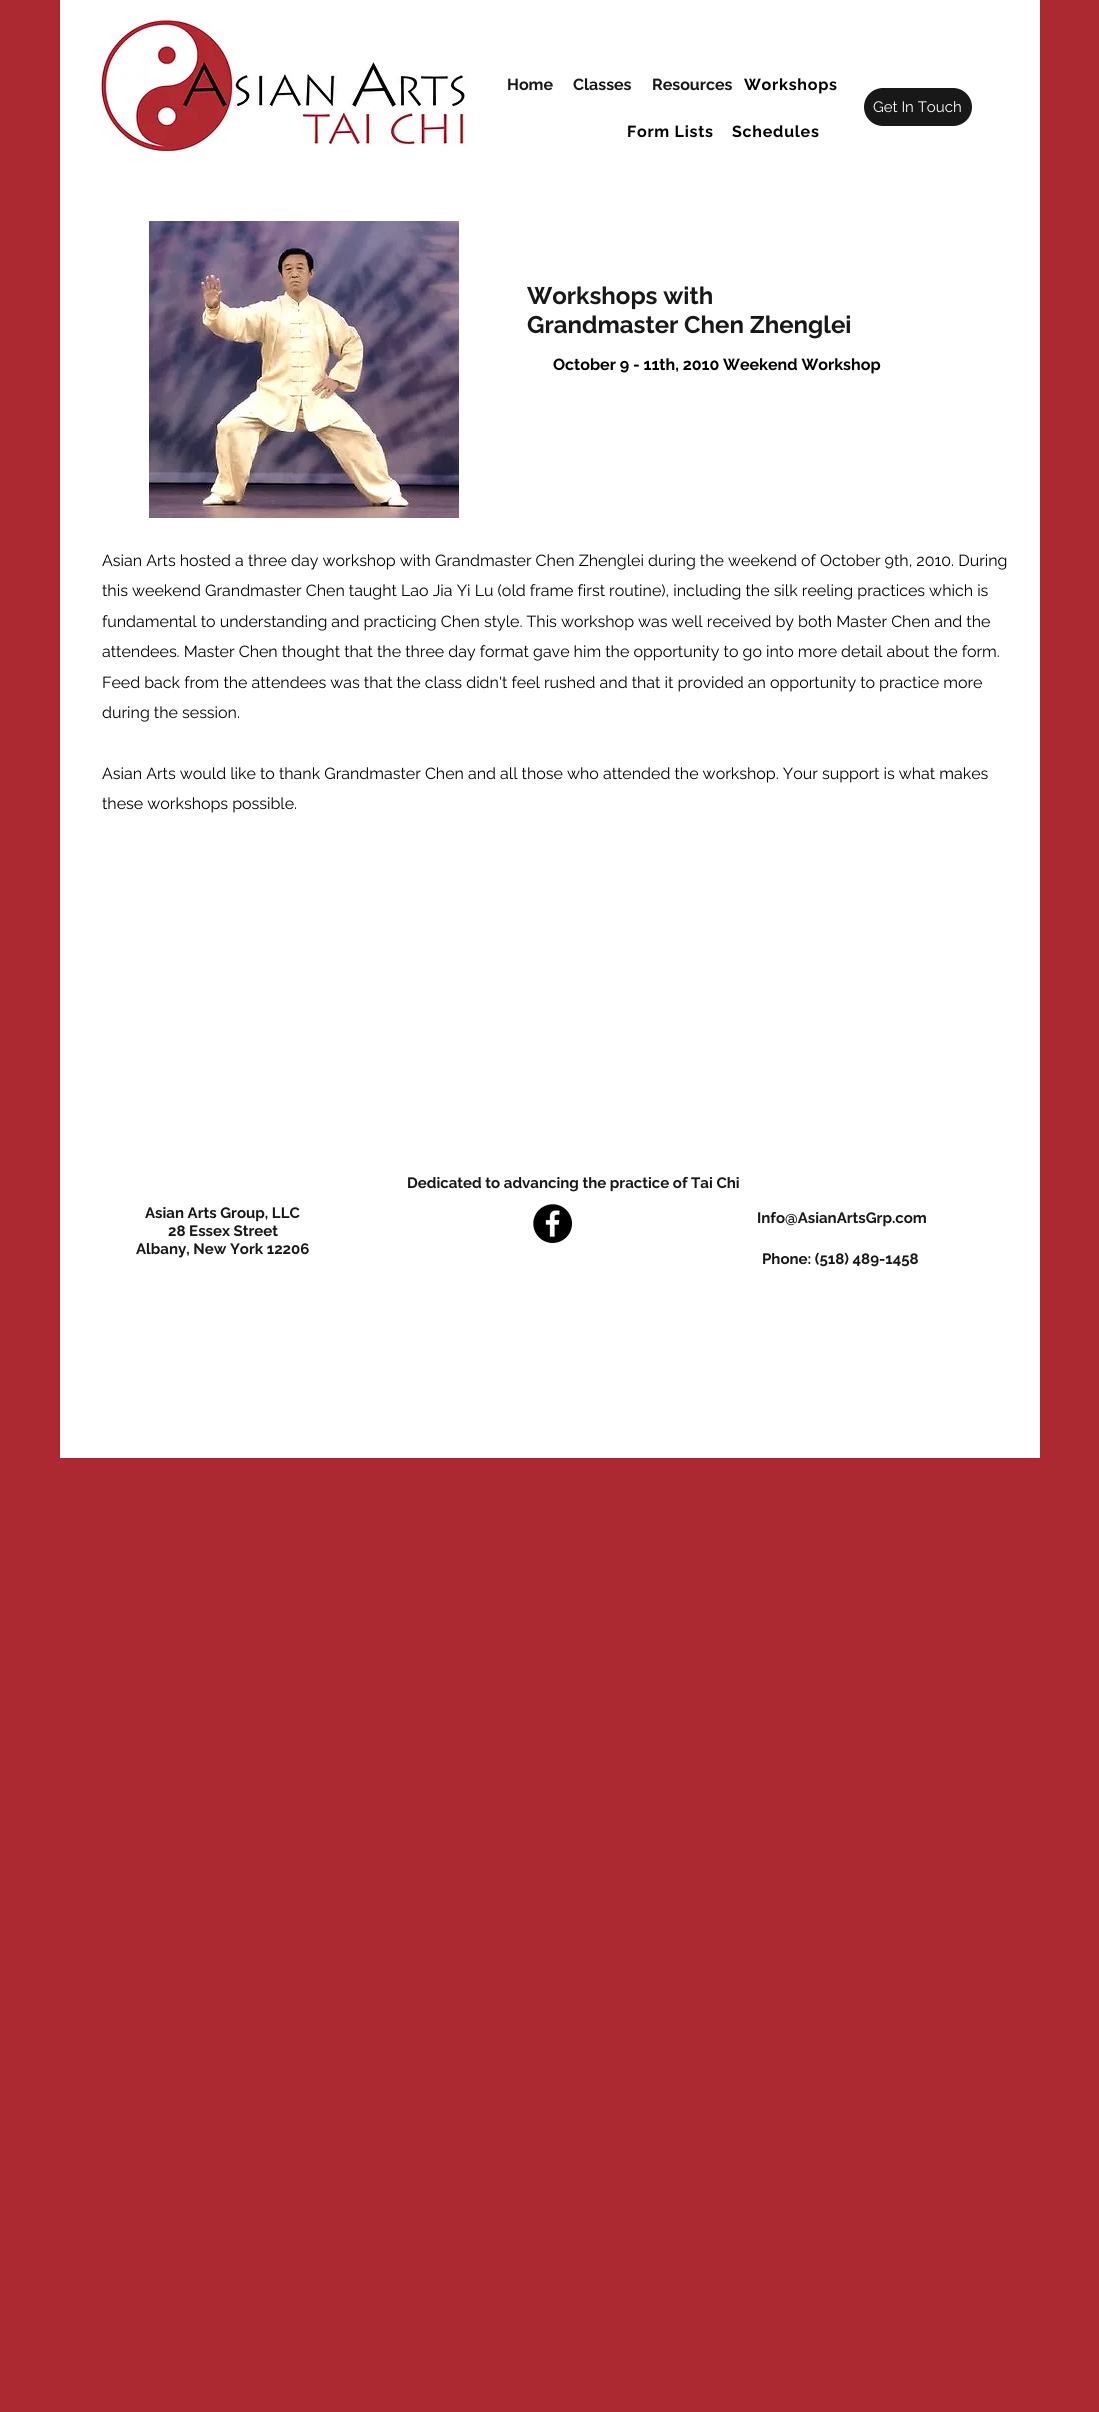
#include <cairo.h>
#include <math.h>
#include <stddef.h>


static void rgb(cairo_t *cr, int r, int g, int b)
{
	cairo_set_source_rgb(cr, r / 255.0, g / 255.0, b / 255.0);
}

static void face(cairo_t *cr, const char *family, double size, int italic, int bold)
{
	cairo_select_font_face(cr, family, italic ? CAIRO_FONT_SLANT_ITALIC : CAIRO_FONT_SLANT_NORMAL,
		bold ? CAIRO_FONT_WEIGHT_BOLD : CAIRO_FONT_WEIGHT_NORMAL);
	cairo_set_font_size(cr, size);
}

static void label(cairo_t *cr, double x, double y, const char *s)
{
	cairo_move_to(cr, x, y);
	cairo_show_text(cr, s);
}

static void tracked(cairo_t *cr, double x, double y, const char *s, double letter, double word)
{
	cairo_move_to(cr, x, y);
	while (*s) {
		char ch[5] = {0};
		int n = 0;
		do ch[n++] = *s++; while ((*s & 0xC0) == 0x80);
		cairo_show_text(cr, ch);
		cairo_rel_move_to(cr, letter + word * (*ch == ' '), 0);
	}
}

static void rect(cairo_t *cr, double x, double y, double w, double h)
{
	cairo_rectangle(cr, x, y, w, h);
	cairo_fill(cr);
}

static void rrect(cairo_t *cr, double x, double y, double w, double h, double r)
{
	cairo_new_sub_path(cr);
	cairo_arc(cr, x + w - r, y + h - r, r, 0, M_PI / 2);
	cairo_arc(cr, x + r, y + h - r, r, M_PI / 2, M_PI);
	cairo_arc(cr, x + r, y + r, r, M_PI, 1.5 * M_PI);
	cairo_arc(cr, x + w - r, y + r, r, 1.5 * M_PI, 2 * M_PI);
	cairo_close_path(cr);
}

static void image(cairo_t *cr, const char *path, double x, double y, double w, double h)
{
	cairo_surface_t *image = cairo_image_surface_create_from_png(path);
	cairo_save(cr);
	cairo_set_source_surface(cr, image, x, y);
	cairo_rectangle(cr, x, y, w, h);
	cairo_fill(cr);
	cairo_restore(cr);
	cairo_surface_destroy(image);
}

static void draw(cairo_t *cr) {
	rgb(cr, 172, 41, 49);
	cairo_paint(cr);
	rgb(cr, 255, 255, 255);
	rect(cr, 60, 0, 980, 1458);
	image(cr, "image0.png", 101, 20, 368, 132);
	face(cr, "Raleway", 16, 0, 1);
	rgb(cr, 24, 24, 24);
	label(cr, 507, 90, "Home");
	label(cr, 573, 90, "Classes");
	label(cr, 652, 90, "Resources");
	rgb(cr, 0, 0, 0);
	tracked(cr, 744, 90, "Workshops", 0.75, 0);
	rgb(cr, 24, 24, 24);
	rrect(cr, 864, 88, 108, 38, 19);
	cairo_fill(cr);
	face(cr, "Raleway", 15, 0, 0);
	rgb(cr, 255, 255, 255);
	label(cr, 873, 112, "Get In Touch");
	face(cr, "Raleway", 16, 0, 1);
	rgb(cr, 0, 0, 0);
	tracked(cr, 627, 137, "Form Lists", 0.75, 0);
	tracked(cr, 732, 137, "Schedules", 0.75, 0);
	image(cr, "image1.png", 149, 221, 310, 297);
	face(cr, "Raleway", 24, 0, 1);
	rgb(cr, 24, 24, 24);
	label(cr, 527, 304, "Workshops with");
	label(cr, 527, 333, "Grandmaster Chen Zhenglei");
	face(cr, "Raleway", 16, 0, 1);
	rgb(cr, 0, 0, 0);
	label(cr, 553, 370, "October 9 - 11th, 2010 Weekend Workshop");
	face(cr, "Raleway", 16, 0, 0);
	label(cr, 102, 566, "Asian Arts hosted a three day workshop with Grandmaster Chen Zhenglei during the weekend of October 9th, 2010. During");
	label(cr, 102, 596, "this weekend Grandmaster Chen taught Lao Jia Yi Lu (old frame first routine), including the silk reeling practices which is");
	label(cr, 102, 627, "fundamental to understanding and practicing Chen style. This workshop was well received by both Master Chen and the");
	label(cr, 102, 657, "attendees. Master Chen thought that the three day format gave him the opportunity to go into more detail about the form.");
	label(cr, 102, 688, "Feed back from the attendees was that the class didn't feel rushed and that it provided an opportunity to practice more");
	label(cr, 102, 718, "during the session.");
	label(cr, 102, 779, "Asian Arts would like to thank Grandmaster Chen and all those who attended the workshop. Your support is what makes");
	label(cr, 102, 809, "these workshops possible.");
	face(cr, "Raleway", 15, 0, 1);
	rgb(cr, 24, 24, 24);
	label(cr, 407, 1188, "Dedicated to advancing the practice of Tai Chi");
	label(cr, 145, 1218, "Asian Arts Group, LLC");
	label(cr, 168, 1236, "28 Essex Street");
	label(cr, 136, 1254, "Albany, New York 12206");
	image(cr, "image2.png", 533, 1204, 39, 39);
	label(cr, 757, 1223, "Info@AsianArtsGrp.com");
	label(cr, 762, 1264, "Phone: (518) 489-1458");
}

int main(void) {
	cairo_surface_t *surface = cairo_image_surface_create(CAIRO_FORMAT_RGB24, 1099, 2412);
	cairo_t *cr = cairo_create(surface);
	cairo_font_options_t *options = cairo_font_options_create();
	cairo_font_options_set_hint_metrics(options, CAIRO_HINT_METRICS_OFF);
	cairo_font_options_set_hint_style(options, CAIRO_HINT_STYLE_NONE);
	cairo_set_font_options(cr, options);
	cairo_set_miter_limit(cr, 4);
	draw(cr);
	cairo_surface_write_to_png(surface, "render.png");
	cairo_font_options_destroy(options);
	cairo_destroy(cr);
	cairo_surface_destroy(surface);
	return 0;
}
